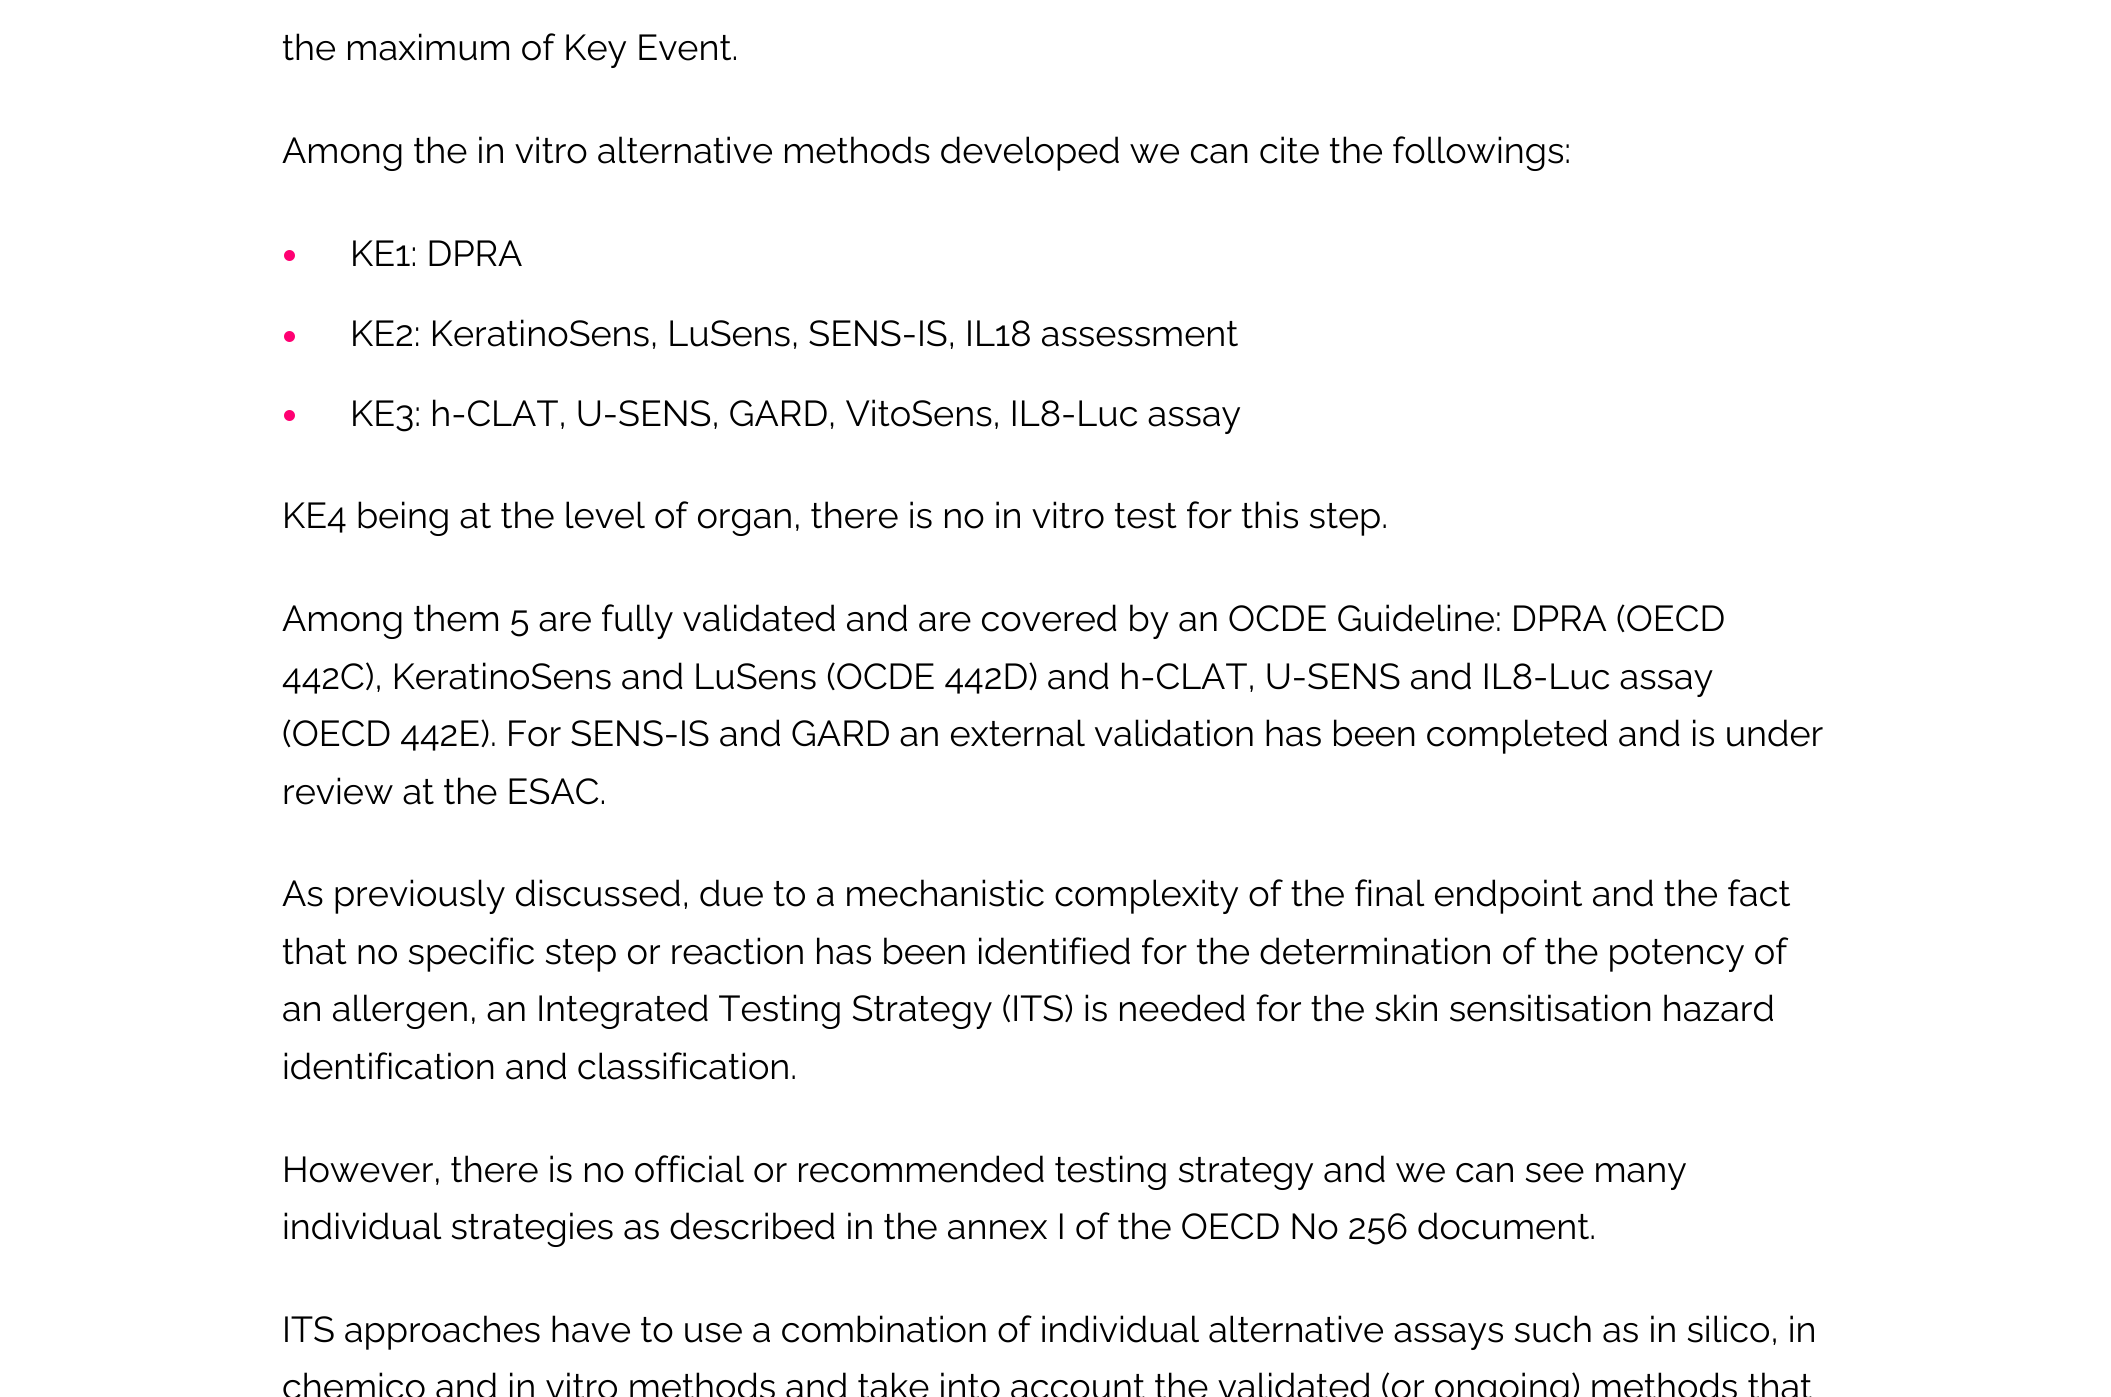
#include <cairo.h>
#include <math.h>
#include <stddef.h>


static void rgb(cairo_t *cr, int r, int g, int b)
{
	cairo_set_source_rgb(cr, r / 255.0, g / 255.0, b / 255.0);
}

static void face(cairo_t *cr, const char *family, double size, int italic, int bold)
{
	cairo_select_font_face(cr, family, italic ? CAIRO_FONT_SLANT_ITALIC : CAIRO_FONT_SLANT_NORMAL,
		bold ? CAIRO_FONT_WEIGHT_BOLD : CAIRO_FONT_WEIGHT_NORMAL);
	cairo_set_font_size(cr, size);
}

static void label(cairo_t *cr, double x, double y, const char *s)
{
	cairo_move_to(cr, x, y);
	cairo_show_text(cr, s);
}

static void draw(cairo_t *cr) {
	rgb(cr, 255, 255, 255);
	cairo_paint(cr);
	face(cr, "Raleway", 36, 0, 0);
	rgb(cr, 0, 0, 0);
	label(cr, 282, 60, "the maximum of Key Event.");
	label(cr, 282, 163, "Among the in vitro alternative methods developed we can cite the followings:");
	rgb(cr, 255, 0, 114);
	cairo_new_path(cr);
	cairo_arc(cr, 289.5, 255.5, 5.5, 0, 2 * M_PI);
	cairo_fill(cr);
	rgb(cr, 0, 0, 0);
	label(cr, 350, 266, "KE1: DPRA");
	rgb(cr, 255, 0, 114);
	cairo_new_path(cr);
	cairo_arc(cr, 289.5, 336.5, 5.5, 0, 2 * M_PI);
	cairo_fill(cr);
	rgb(cr, 0, 0, 0);
	label(cr, 350, 346, "KE2: KeratinoSens, LuSens, SENS-IS, IL18 assessment");
	rgb(cr, 255, 0, 114);
	cairo_new_path(cr);
	cairo_arc(cr, 289.5, 415.5, 5.5, 0, 2 * M_PI);
	cairo_fill(cr);
	rgb(cr, 0, 0, 0);
	label(cr, 350, 426, "KE3: h-CLAT, U-SENS, GARD, VitoSens, IL8-Luc assay");
	label(cr, 282, 528, "KE4 being at the level of organ, there is no in vitro test for this step.");
	label(cr, 282, 631, "Among them 5 are fully validated and are covered by an OCDE Guideline: DPRA (OECD");
	label(cr, 282, 689, "442C), KeratinoSens and LuSens (OCDE 442D) and h-CLAT, U-SENS and IL8-Luc assay");
	label(cr, 282, 746, "(OECD 442E). For SENS-IS and GARD an external validation has been completed and is under");
	label(cr, 282, 804, "review at the ESAC.");
	label(cr, 282, 906, "As previously discussed, due to a mechanistic complexity of the final endpoint and the fact");
	label(cr, 282, 964, "that no specific step or reaction has been identified for the determination of the potency of");
	label(cr, 282, 1021, "an allergen, an Integrated Testing Strategy (ITS) is needed for the skin sensitisation hazard");
	label(cr, 282, 1079, "identification and classification.");
	label(cr, 282, 1182, "However, there is no official or recommended testing strategy and we can see many");
	label(cr, 282, 1239, "individual strategies as described in the annex I of the OECD No 256 document.");
	label(cr, 282, 1342, "ITS approaches have to use a combination of individual alternative assays such as in silico, in");
	label(cr, 282, 1399, "chemico and in vitro methods and take into account the validated (or ongoing) methods that");
}

int main(void) {
	cairo_surface_t *surface = cairo_image_surface_create(CAIRO_FORMAT_RGB24, 2111, 1397);
	cairo_t *cr = cairo_create(surface);
	cairo_font_options_t *options = cairo_font_options_create();
	cairo_font_options_set_hint_metrics(options, CAIRO_HINT_METRICS_OFF);
	cairo_font_options_set_hint_style(options, CAIRO_HINT_STYLE_NONE);
	cairo_set_font_options(cr, options);
	cairo_set_miter_limit(cr, 4);
	draw(cr);
	cairo_surface_write_to_png(surface, "render.png");
	cairo_font_options_destroy(options);
	cairo_destroy(cr);
	cairo_surface_destroy(surface);
	return 0;
}
